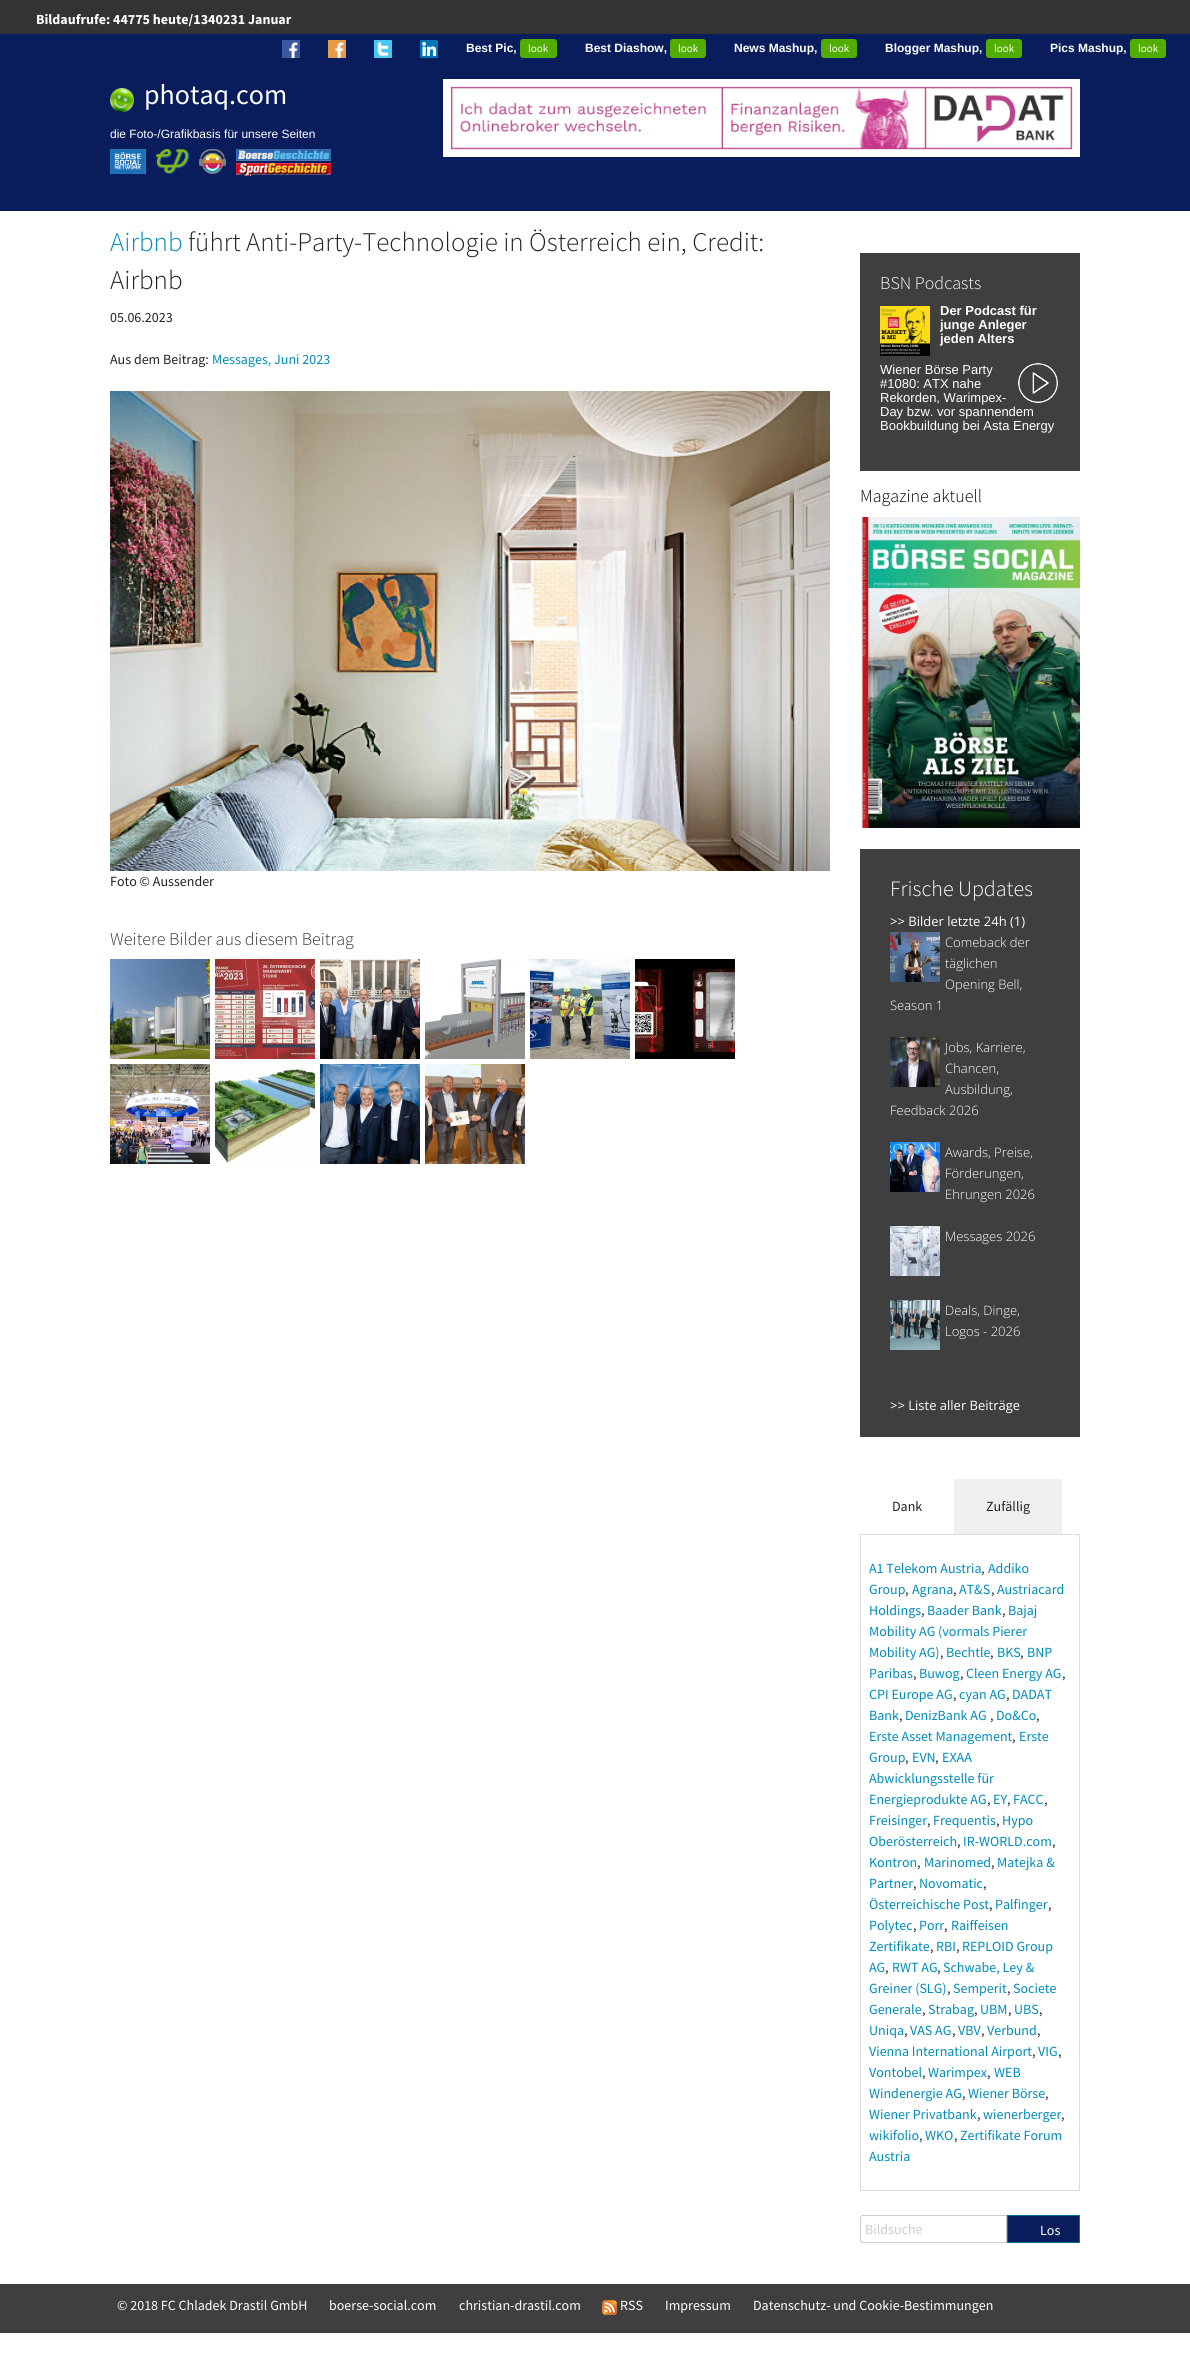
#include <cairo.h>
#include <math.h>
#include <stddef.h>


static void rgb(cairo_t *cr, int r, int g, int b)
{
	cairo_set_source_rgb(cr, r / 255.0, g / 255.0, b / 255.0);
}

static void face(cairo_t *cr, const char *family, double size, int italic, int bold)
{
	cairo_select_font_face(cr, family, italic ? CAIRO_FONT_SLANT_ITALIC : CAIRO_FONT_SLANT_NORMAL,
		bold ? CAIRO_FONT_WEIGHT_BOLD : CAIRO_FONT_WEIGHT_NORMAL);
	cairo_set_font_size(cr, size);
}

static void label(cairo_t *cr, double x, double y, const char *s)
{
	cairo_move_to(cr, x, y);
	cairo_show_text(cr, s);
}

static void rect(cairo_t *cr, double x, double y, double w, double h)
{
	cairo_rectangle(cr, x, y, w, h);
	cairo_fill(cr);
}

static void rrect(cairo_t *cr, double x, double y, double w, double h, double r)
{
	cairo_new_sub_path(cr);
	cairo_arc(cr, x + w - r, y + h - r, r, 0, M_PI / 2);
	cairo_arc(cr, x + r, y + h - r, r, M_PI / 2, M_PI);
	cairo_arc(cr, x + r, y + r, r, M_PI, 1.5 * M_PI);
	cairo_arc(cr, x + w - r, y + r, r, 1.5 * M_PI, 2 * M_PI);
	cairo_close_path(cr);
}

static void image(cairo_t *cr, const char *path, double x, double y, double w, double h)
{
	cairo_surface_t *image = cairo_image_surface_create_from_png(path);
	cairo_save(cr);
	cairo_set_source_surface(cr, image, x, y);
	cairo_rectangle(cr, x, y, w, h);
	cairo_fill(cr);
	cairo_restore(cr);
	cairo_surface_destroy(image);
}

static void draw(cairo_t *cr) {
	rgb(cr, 255, 255, 255);
	cairo_paint(cr);
	rgb(cr, 51, 51, 51);
	rect(cr, 0, 0, 1190, 34);
	face(cr, "Source Sans Pro", 14, 0, 1);
	rgb(cr, 255, 255, 255);
	label(cr, 36, 24, "Bildaufrufe: 44775 heute/1340231 Januar");
	rgb(cr, 9, 29, 93);
	rect(cr, 0, 34, 1190, 177);
	image(cr, "image0.png", 282, 40, 18, 18);
	image(cr, "image1.png", 328, 40, 18, 18);
	image(cr, "image2.png", 374, 40, 18, 18);
	image(cr, "image3.png", 420, 40, 18, 18);
	face(cr, "Liberation Sans", 12, 0, 1);
	rgb(cr, 255, 255, 255);
	label(cr, 466, 52, "Best Pic,");
	rgb(cr, 82, 173, 1);
	rrect(cr, 520, 39, 37, 19, 3);
	cairo_fill(cr);
	face(cr, "Source Sans Pro", 11, 0, 0);
	rgb(cr, 255, 255, 255);
	label(cr, 528, 52, "look");
	face(cr, "Liberation Sans", 12, 0, 1);
	label(cr, 585, 52, "Best Diashow,");
	rgb(cr, 82, 173, 1);
	rrect(cr, 670, 39, 36, 19, 3);
	cairo_fill(cr);
	face(cr, "Source Sans Pro", 11, 0, 0);
	rgb(cr, 255, 255, 255);
	label(cr, 678, 52, "look");
	face(cr, "Liberation Sans", 12, 0, 1);
	label(cr, 734, 52, "News Mashup,");
	rgb(cr, 82, 173, 1);
	rrect(cr, 821, 39, 36, 19, 3);
	cairo_fill(cr);
	face(cr, "Source Sans Pro", 11, 0, 0);
	rgb(cr, 255, 255, 255);
	label(cr, 829, 52, "look");
	face(cr, "Liberation Sans", 12, 0, 1);
	label(cr, 885, 52, "Blogger Mashup,");
	rgb(cr, 82, 173, 1);
	rrect(cr, 986, 39, 36, 19, 3);
	cairo_fill(cr);
	face(cr, "Source Sans Pro", 11, 0, 0);
	rgb(cr, 255, 255, 255);
	label(cr, 994, 52, "look");
	face(cr, "Liberation Sans", 12, 0, 1);
	label(cr, 1050, 52, "Pics Mashup,");
	rgb(cr, 82, 173, 1);
	rrect(cr, 1130, 39, 36, 19, 3);
	cairo_fill(cr);
	face(cr, "Source Sans Pro", 11, 0, 0);
	rgb(cr, 255, 255, 255);
	label(cr, 1138, 52, "look");
	image(cr, "image4.png", 110, 88, 24, 24);
	face(cr, "Source Sans Pro", 28, 0, 0);
	label(cr, 144, 104, "photaq.com");
	face(cr, "Liberation Sans", 12, 0, 0);
	label(cr, 110, 138, "die Foto-/Grafikbasis für unsere Seiten");
	image(cr, "image5.png", 110, 149, 36, 25);
	image(cr, "image6.png", 156, 149, 33, 25);
	image(cr, "image7.png", 199, 149, 27, 25);
	image(cr, "image8.png", 236, 149, 95, 12);
	image(cr, "image9.png", 236, 163, 95, 13);
	image(cr, "image10.png", 443, 79, 637, 78);
	face(cr, "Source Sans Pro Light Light", 27, 0, 0);
	rgb(cr, 0, 140, 186);
	label(cr, 110, 251, "Airbnb");
	rgb(cr, 34, 34, 34);
	label(cr, 188, 251, "führt Anti-Party-Technologie in Österreich ein, Credit:");
	label(cr, 110, 289, "Airbnb");
	face(cr, "Source Sans Pro", 14, 0, 0);
	label(cr, 110, 322, "05.06.2023");
	label(cr, 110, 364, "Aus dem Beitrag:");
	rgb(cr, 0, 140, 186);
	label(cr, 212, 364, "Messages, Juni 2023");
	image(cr, "image11.png", 110, 391, 720, 480);
	rgb(cr, 34, 34, 34);
	label(cr, 110, 886, "Foto © Aussender");
	face(cr, "Source Sans Pro Light Light", 18, 0, 0);
	rgb(cr, 51, 51, 51);
	label(cr, 110, 945, "Weitere Bilder aus diesem Beitrag");
	image(cr, "image12.png", 110, 959, 100, 100);
	image(cr, "image13.png", 215, 959, 100, 100);
	image(cr, "image14.png", 320, 959, 100, 100);
	image(cr, "image15.png", 425, 959, 100, 100);
	image(cr, "image16.png", 530, 959, 100, 100);
	image(cr, "image17.png", 635, 959, 100, 100);
	image(cr, "image18.png", 110, 1064, 100, 100);
	image(cr, "image19.png", 215, 1064, 100, 100);
	image(cr, "image20.png", 320, 1064, 100, 100);
	image(cr, "image21.png", 425, 1064, 100, 100);
	rgb(cr, 63, 63, 63);
	rect(cr, 860, 253, 220, 218);
	rgb(cr, 255, 255, 255);
	label(cr, 880, 289, "BSN Podcasts");
	image(cr, "image22.png", 880, 306, 50, 50);
	face(cr, "Liberation Sans", 13, 0, 1);
	label(cr, 940, 315, "Der Podcast für");
	label(cr, 940, 329, "junge Anleger");
	label(cr, 940, 343, "jeden Alters");
	image(cr, "image23.png", 1018, 363, 40, 40);
	face(cr, "Liberation Sans", 13, 0, 0);
	label(cr, 880, 374, "Wiener Börse Party");
	label(cr, 880, 388, "#1080: ATX nahe");
	label(cr, 880, 402, "Rekorden, Warimpex-");
	label(cr, 880, 416, "Day bzw. vor spannendem");
	label(cr, 880, 430, "Bookbuildung bei Asta Energy");
	face(cr, "Source Sans Pro Light Light", 18, 0, 0);
	rgb(cr, 0, 0, 0);
	label(cr, 860, 502, "Magazine aktuell");
	image(cr, "image24.png", 860, 517, 220, 311);
	rgb(cr, 63, 63, 63);
	rect(cr, 860, 849, 220, 588);
	face(cr, "Source Sans Pro Light Light", 22, 0, 0);
	rgb(cr, 255, 255, 255);
	label(cr, 890, 896, "Frische Updates");
	face(cr, "Open Sans", 13, 0, 0);
	label(cr, 890, 926, ">> Bilder letzte 24h (1)");
	image(cr, "image25.png", 890, 932, 50, 50);
	face(cr, "Open Sans Light", 13, 0, 0);
	label(cr, 945, 947, "Comeback der");
	label(cr, 945, 968, "täglichen");
	label(cr, 945, 989, "Opening Bell,");
	label(cr, 890, 1010, "Season 1");
	image(cr, "image26.png", 890, 1037, 50, 50);
	label(cr, 945, 1052, "Jobs, Karriere,");
	label(cr, 945, 1073, "Chancen,");
	label(cr, 945, 1094, "Ausbildung,");
	label(cr, 890, 1115, "Feedback 2026");
	image(cr, "image27.png", 890, 1142, 50, 50);
	label(cr, 945, 1157, "Awards, Preise,");
	label(cr, 945, 1178, "Förderungen,");
	label(cr, 945, 1199, "Ehrungen 2026");
	image(cr, "image28.png", 890, 1226, 50, 50);
	label(cr, 945, 1241, "Messages 2026");
	image(cr, "image29.png", 890, 1300, 50, 50);
	label(cr, 945, 1315, "Deals, Dinge,");
	label(cr, 945, 1336, "Logos - 2026");
	face(cr, "Open Sans", 13, 0, 0);
	label(cr, 890, 1410, ">> Liste aller Beiträge");
	face(cr, "Source Sans Pro", 14, 0, 0);
	rgb(cr, 34, 34, 34);
	label(cr, 892, 1511, "Dank");
	rgb(cr, 239, 239, 239);
	rect(cr, 954, 1479, 108, 55);
	rgb(cr, 34, 34, 34);
	label(cr, 986, 1511, "Zufällig");
	cairo_rectangle(cr, 860.5, 1534.5, 219, 656);
	rgb(cr, 221, 221, 221);
	cairo_set_line_width(cr, 1);
	cairo_stroke(cr);
	rgb(cr, 0, 140, 186);
	label(cr, 869, 1573, "A1 Telekom Austria");
	rgb(cr, 34, 34, 34);
	label(cr, 981, 1573, ",");
	rgb(cr, 0, 140, 186);
	label(cr, 988, 1573, "Addiko");
	label(cr, 869, 1594, "Group");
	rgb(cr, 34, 34, 34);
	label(cr, 905, 1594, ",");
	rgb(cr, 0, 140, 186);
	label(cr, 912, 1594, "Agrana");
	rgb(cr, 34, 34, 34);
	label(cr, 953, 1594, ",");
	rgb(cr, 0, 140, 186);
	label(cr, 959, 1594, "AT&S");
	rgb(cr, 34, 34, 34);
	label(cr, 991, 1594, ",");
	rgb(cr, 0, 140, 186);
	label(cr, 997, 1594, "Austriacard");
	label(cr, 869, 1615, "Holdings");
	rgb(cr, 34, 34, 34);
	label(cr, 921, 1615, ",");
	rgb(cr, 0, 140, 186);
	label(cr, 927, 1615, "Baader Bank");
	rgb(cr, 34, 34, 34);
	label(cr, 1002, 1615, ",");
	rgb(cr, 0, 140, 186);
	label(cr, 1008, 1615, "Bajaj");
	label(cr, 869, 1636, "Mobility AG (vormals Pierer");
	label(cr, 869, 1657, "Mobility AG)");
	label(cr, 946, 1657, "Bechtle");
	label(cr, 997, 1657, "BKS");
	label(cr, 1027, 1657, "BNP");
	rgb(cr, 34, 34, 34);
	label(cr, 940, 1657, ",");
	label(cr, 990, 1657, ",");
	label(cr, 1020, 1657, ",");
	rgb(cr, 0, 140, 186);
	label(cr, 869, 1678, "Paribas");
	rgb(cr, 34, 34, 34);
	label(cr, 913, 1678, ",");
	rgb(cr, 0, 140, 186);
	label(cr, 919, 1678, "Buwog");
	rgb(cr, 34, 34, 34);
	label(cr, 960, 1678, ",");
	rgb(cr, 0, 140, 186);
	label(cr, 966, 1678, "Cleen Energy AG");
	rgb(cr, 34, 34, 34);
	label(cr, 1062, 1678, ",");
	rgb(cr, 0, 140, 186);
	label(cr, 869, 1699, "CPI Europe AG");
	label(cr, 959, 1699, "cyan AG");
	label(cr, 1012, 1699, "DADAT");
	rgb(cr, 34, 34, 34);
	label(cr, 953, 1699, ",");
	label(cr, 1006, 1699, ",");
	rgb(cr, 0, 140, 186);
	label(cr, 869, 1720, "Bank");
	rgb(cr, 34, 34, 34);
	label(cr, 899, 1720, ",");
	rgb(cr, 0, 140, 186);
	label(cr, 905, 1720, "DenizBank AG");
	rgb(cr, 34, 34, 34);
	label(cr, 990, 1720, ",");
	rgb(cr, 0, 140, 186);
	label(cr, 996, 1720, "Do&Co");
	rgb(cr, 34, 34, 34);
	label(cr, 1036, 1720, ",");
	rgb(cr, 0, 140, 186);
	label(cr, 869, 1741, "Erste Asset Management");
	rgb(cr, 34, 34, 34);
	label(cr, 1012, 1741, ",");
	rgb(cr, 0, 140, 186);
	label(cr, 1019, 1741, "Erste");
	label(cr, 869, 1762, "Group");
	label(cr, 912, 1762, "EVN");
	label(cr, 942, 1762, "EXAA");
	rgb(cr, 34, 34, 34);
	label(cr, 905, 1762, ",");
	label(cr, 935, 1762, ",");
	rgb(cr, 0, 140, 186);
	label(cr, 869, 1783, "Abwicklungsstelle für");
	label(cr, 869, 1804, "Energieprodukte AG");
	rgb(cr, 34, 34, 34);
	label(cr, 987, 1804, ",");
	rgb(cr, 0, 140, 186);
	label(cr, 993, 1804, "EY");
	rgb(cr, 34, 34, 34);
	label(cr, 1007, 1804, ",");
	rgb(cr, 0, 140, 186);
	label(cr, 1013, 1804, "FACC");
	rgb(cr, 34, 34, 34);
	label(cr, 1044, 1804, ",");
	rgb(cr, 0, 140, 186);
	label(cr, 869, 1825, "Freisinger");
	rgb(cr, 34, 34, 34);
	label(cr, 927, 1825, ",");
	rgb(cr, 0, 140, 186);
	label(cr, 933, 1825, "Frequentis");
	rgb(cr, 34, 34, 34);
	label(cr, 996, 1825, ",");
	rgb(cr, 0, 140, 186);
	label(cr, 1002, 1825, "Hypo");
	label(cr, 869, 1846, "Oberösterreich");
	rgb(cr, 34, 34, 34);
	label(cr, 957, 1846, ",");
	rgb(cr, 0, 140, 186);
	label(cr, 963, 1846, "IR-WORLD.com");
	rgb(cr, 34, 34, 34);
	label(cr, 1052, 1846, ",");
	rgb(cr, 0, 140, 186);
	label(cr, 869, 1867, "Kontron");
	rgb(cr, 34, 34, 34);
	label(cr, 917, 1867, ",");
	rgb(cr, 0, 140, 186);
	label(cr, 924, 1867, "Marinomed");
	rgb(cr, 34, 34, 34);
	label(cr, 991, 1867, ",");
	rgb(cr, 0, 140, 186);
	label(cr, 997, 1867, "Matejka &");
	label(cr, 869, 1888, "Partner");
	rgb(cr, 34, 34, 34);
	label(cr, 913, 1888, ",");
	rgb(cr, 0, 140, 186);
	label(cr, 919, 1888, "Novomatic");
	rgb(cr, 34, 34, 34);
	label(cr, 983, 1888, ",");
	rgb(cr, 0, 140, 186);
	label(cr, 869, 1909, "Österreichische Post");
	rgb(cr, 34, 34, 34);
	label(cr, 989, 1909, ",");
	rgb(cr, 0, 140, 186);
	label(cr, 995, 1909, "Palfinger");
	rgb(cr, 34, 34, 34);
	label(cr, 1048, 1909, ",");
	rgb(cr, 0, 140, 186);
	label(cr, 869, 1930, "Polytec");
	rgb(cr, 34, 34, 34);
	label(cr, 913, 1930, ",");
	rgb(cr, 0, 140, 186);
	label(cr, 919, 1930, "Porr");
	rgb(cr, 34, 34, 34);
	label(cr, 944, 1930, ",");
	rgb(cr, 0, 140, 186);
	label(cr, 951, 1930, "Raiffeisen");
	label(cr, 869, 1951, "Zertifikate");
	rgb(cr, 34, 34, 34);
	label(cr, 930, 1951, ",");
	rgb(cr, 0, 140, 186);
	label(cr, 936, 1951, "RBI");
	rgb(cr, 34, 34, 34);
	label(cr, 956, 1951, ",");
	rgb(cr, 0, 140, 186);
	label(cr, 962, 1951, "REPLOID Group");
	label(cr, 869, 1972, "AG");
	rgb(cr, 34, 34, 34);
	label(cr, 885, 1972, ",");
	rgb(cr, 0, 140, 186);
	label(cr, 892, 1972, "RWT AG");
	rgb(cr, 34, 34, 34);
	label(cr, 937, 1972, ",");
	rgb(cr, 0, 140, 186);
	label(cr, 943, 1972, "Schwabe, Ley &");
	label(cr, 869, 1993, "Greiner (SLG)");
	rgb(cr, 34, 34, 34);
	label(cr, 947, 1993, ",");
	rgb(cr, 0, 140, 186);
	label(cr, 953, 1993, "Semperit");
	rgb(cr, 34, 34, 34);
	label(cr, 1007, 1993, ",");
	rgb(cr, 0, 140, 186);
	label(cr, 1013, 1993, "Societe");
	label(cr, 869, 2014, "Generale");
	rgb(cr, 34, 34, 34);
	label(cr, 922, 2014, ",");
	rgb(cr, 0, 140, 186);
	label(cr, 928, 2014, "Strabag");
	rgb(cr, 34, 34, 34);
	label(cr, 974, 2014, ",");
	rgb(cr, 0, 140, 186);
	label(cr, 980, 2014, "UBM");
	rgb(cr, 34, 34, 34);
	label(cr, 1008, 2014, ",");
	rgb(cr, 0, 140, 186);
	label(cr, 1014, 2014, "UBS");
	rgb(cr, 34, 34, 34);
	label(cr, 1039, 2014, ",");
	rgb(cr, 0, 140, 186);
	label(cr, 869, 2035, "Uniqa");
	rgb(cr, 34, 34, 34);
	label(cr, 904, 2035, ",");
	rgb(cr, 0, 140, 186);
	label(cr, 910, 2035, "VAS AG");
	rgb(cr, 34, 34, 34);
	label(cr, 952, 2035, ",");
	rgb(cr, 0, 140, 186);
	label(cr, 958, 2035, "VBV");
	rgb(cr, 34, 34, 34);
	label(cr, 981, 2035, ",");
	rgb(cr, 0, 140, 186);
	label(cr, 987, 2035, "Verbund");
	rgb(cr, 34, 34, 34);
	label(cr, 1037, 2035, ",");
	rgb(cr, 0, 140, 186);
	label(cr, 869, 2056, "Vienna International Airport");
	rgb(cr, 34, 34, 34);
	label(cr, 1032, 2056, ",");
	rgb(cr, 0, 140, 186);
	label(cr, 1038, 2056, "VIG");
	rgb(cr, 34, 34, 34);
	label(cr, 1058, 2056, ",");
	rgb(cr, 0, 140, 186);
	label(cr, 869, 2077, "Vontobel");
	label(cr, 928, 2077, "Warimpex");
	label(cr, 994, 2077, "WEB");
	rgb(cr, 34, 34, 34);
	label(cr, 922, 2077, ",");
	label(cr, 987, 2077, ",");
	rgb(cr, 0, 140, 186);
	label(cr, 869, 2098, "Windenergie AG");
	rgb(cr, 34, 34, 34);
	label(cr, 962, 2098, ",");
	rgb(cr, 0, 140, 186);
	label(cr, 968, 2098, "Wiener Börse");
	rgb(cr, 34, 34, 34);
	label(cr, 1045, 2098, ",");
	rgb(cr, 0, 140, 186);
	label(cr, 869, 2119, "Wiener Privatbank");
	rgb(cr, 34, 34, 34);
	label(cr, 977, 2119, ",");
	rgb(cr, 0, 140, 186);
	label(cr, 983, 2119, "wienerberger");
	rgb(cr, 34, 34, 34);
	label(cr, 1061, 2119, ",");
	rgb(cr, 0, 140, 186);
	label(cr, 869, 2140, "wikifolio");
	rgb(cr, 34, 34, 34);
	label(cr, 919, 2140, ",");
	rgb(cr, 0, 140, 186);
	label(cr, 925, 2140, "WKO");
	rgb(cr, 34, 34, 34);
	label(cr, 954, 2140, ",");
	rgb(cr, 0, 140, 186);
	label(cr, 960, 2140, "Zertifikate Forum");
	label(cr, 869, 2161, "Austria");
	cairo_new_path(cr);
	cairo_move_to(cr, 863, 2215.5);
	cairo_line_to(cr, 1006.5, 2215.5);
	cairo_line_to(cr, 1006.5, 2242.5);
	cairo_line_to(cr, 863, 2242.5);
	cairo_curve_to(cr, 861.5, 2242.5, 860.5, 2241.5, 860.5, 2240);
	cairo_line_to(cr, 860.5, 2218);
	cairo_curve_to(cr, 860.5, 2216.5, 861.5, 2215.5, 863, 2215.5);
	cairo_close_path(cr);
	rgb(cr, 204, 204, 204);
	cairo_stroke(cr);
	label(cr, 865, 2234, "Bildsuche");
	rgb(cr, 9, 29, 93);
	cairo_rectangle(cr, 1007.5, 2215.5, 72, 27);
	cairo_fill_preserve(cr);
	rgb(cr, 0, 112, 149);
	cairo_stroke(cr);
	rgb(cr, 255, 255, 255);
	label(cr, 1040, 2235, "Los");
	rgb(cr, 63, 63, 63);
	rect(cr, 0, 2284, 1190, 49);
	rgb(cr, 255, 255, 255);
	label(cr, 117, 2310, "© 2018 FC Chladek Drastil GmbH");
	label(cr, 329, 2310, "boerse-social.com");
	label(cr, 459, 2310, "christian-drastil.com");
	image(cr, "image30.png", 602, 2300, 15, 15);
	label(cr, 620, 2310, "RSS");
	label(cr, 665, 2310, "Impressum");
	label(cr, 753, 2310, "Datenschutz- und Cookie-Bestimmungen");
}

int main(void) {
	cairo_surface_t *surface = cairo_image_surface_create(CAIRO_FORMAT_RGB24, 1190, 2372);
	cairo_t *cr = cairo_create(surface);
	cairo_font_options_t *options = cairo_font_options_create();
	cairo_font_options_set_hint_metrics(options, CAIRO_HINT_METRICS_OFF);
	cairo_font_options_set_hint_style(options, CAIRO_HINT_STYLE_NONE);
	cairo_set_font_options(cr, options);
	cairo_set_miter_limit(cr, 4);
	draw(cr);
	cairo_surface_write_to_png(surface, "render.png");
	cairo_font_options_destroy(options);
	cairo_destroy(cr);
	cairo_surface_destroy(surface);
	return 0;
}
